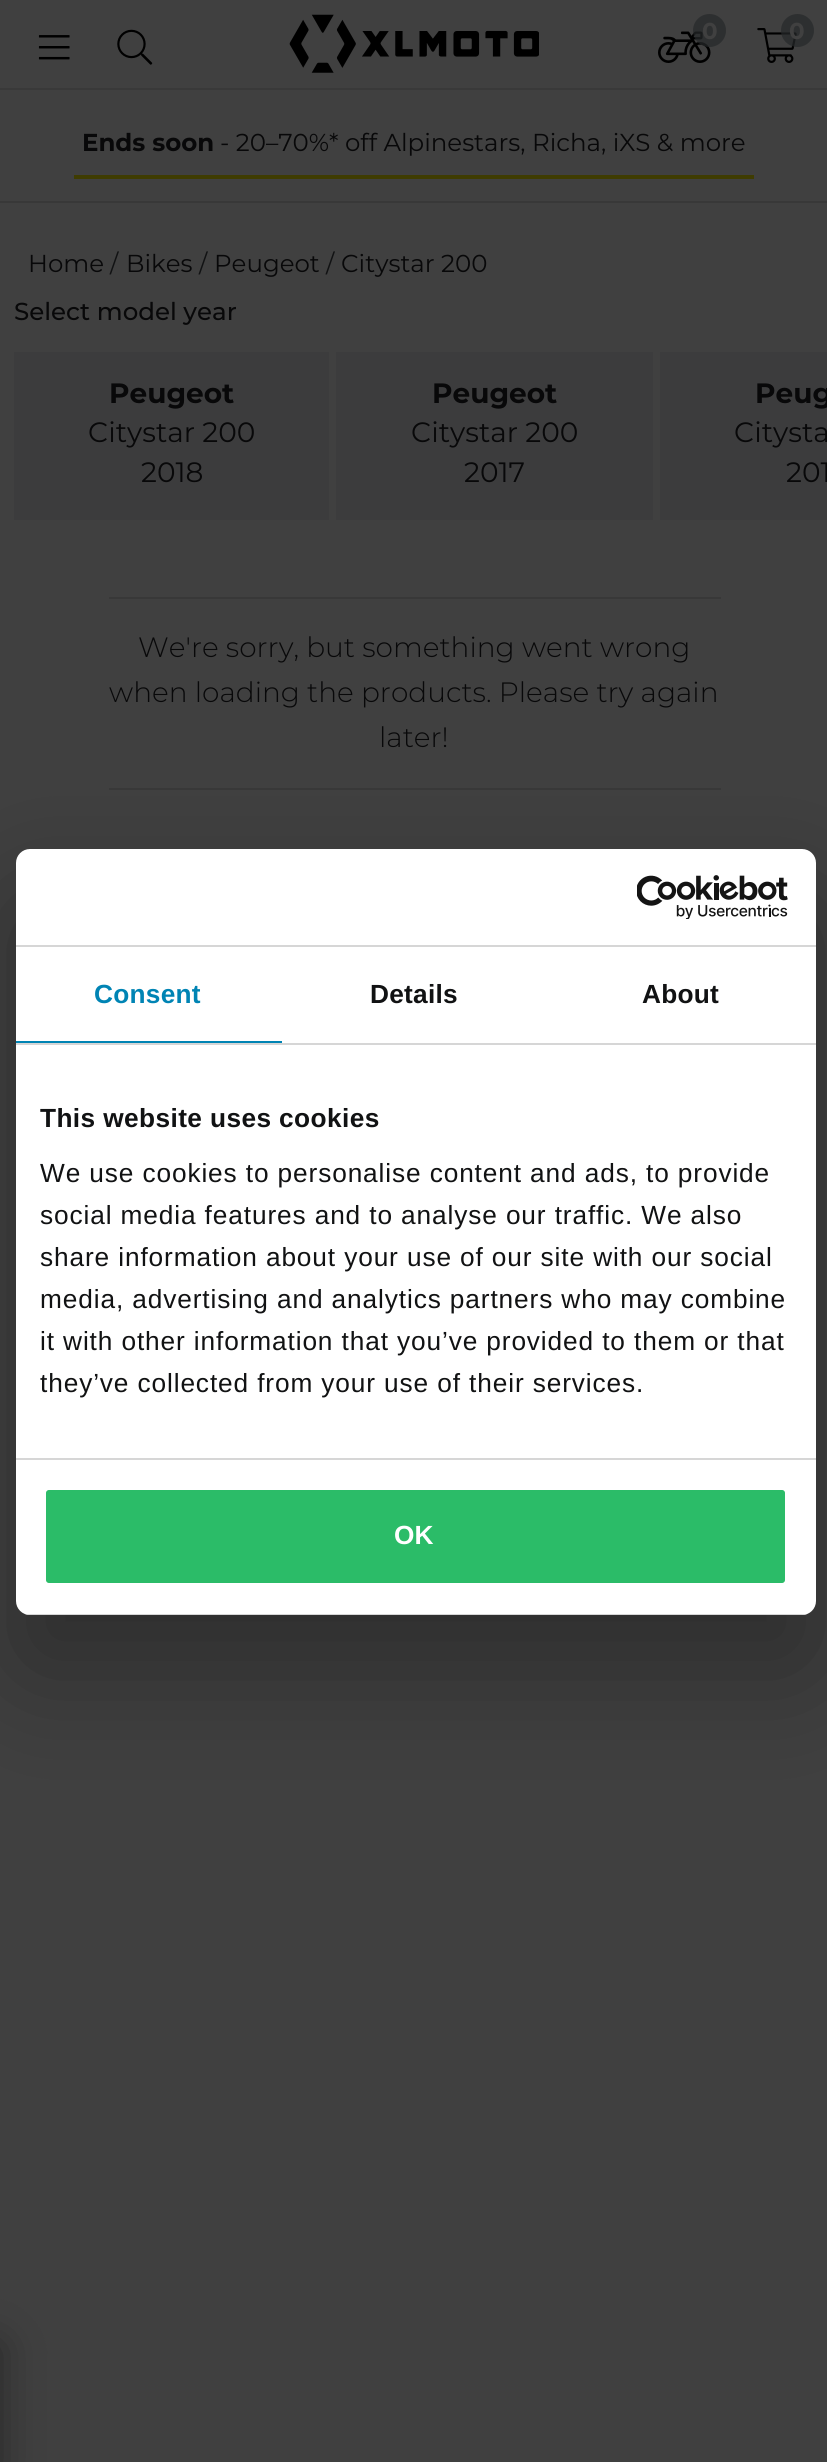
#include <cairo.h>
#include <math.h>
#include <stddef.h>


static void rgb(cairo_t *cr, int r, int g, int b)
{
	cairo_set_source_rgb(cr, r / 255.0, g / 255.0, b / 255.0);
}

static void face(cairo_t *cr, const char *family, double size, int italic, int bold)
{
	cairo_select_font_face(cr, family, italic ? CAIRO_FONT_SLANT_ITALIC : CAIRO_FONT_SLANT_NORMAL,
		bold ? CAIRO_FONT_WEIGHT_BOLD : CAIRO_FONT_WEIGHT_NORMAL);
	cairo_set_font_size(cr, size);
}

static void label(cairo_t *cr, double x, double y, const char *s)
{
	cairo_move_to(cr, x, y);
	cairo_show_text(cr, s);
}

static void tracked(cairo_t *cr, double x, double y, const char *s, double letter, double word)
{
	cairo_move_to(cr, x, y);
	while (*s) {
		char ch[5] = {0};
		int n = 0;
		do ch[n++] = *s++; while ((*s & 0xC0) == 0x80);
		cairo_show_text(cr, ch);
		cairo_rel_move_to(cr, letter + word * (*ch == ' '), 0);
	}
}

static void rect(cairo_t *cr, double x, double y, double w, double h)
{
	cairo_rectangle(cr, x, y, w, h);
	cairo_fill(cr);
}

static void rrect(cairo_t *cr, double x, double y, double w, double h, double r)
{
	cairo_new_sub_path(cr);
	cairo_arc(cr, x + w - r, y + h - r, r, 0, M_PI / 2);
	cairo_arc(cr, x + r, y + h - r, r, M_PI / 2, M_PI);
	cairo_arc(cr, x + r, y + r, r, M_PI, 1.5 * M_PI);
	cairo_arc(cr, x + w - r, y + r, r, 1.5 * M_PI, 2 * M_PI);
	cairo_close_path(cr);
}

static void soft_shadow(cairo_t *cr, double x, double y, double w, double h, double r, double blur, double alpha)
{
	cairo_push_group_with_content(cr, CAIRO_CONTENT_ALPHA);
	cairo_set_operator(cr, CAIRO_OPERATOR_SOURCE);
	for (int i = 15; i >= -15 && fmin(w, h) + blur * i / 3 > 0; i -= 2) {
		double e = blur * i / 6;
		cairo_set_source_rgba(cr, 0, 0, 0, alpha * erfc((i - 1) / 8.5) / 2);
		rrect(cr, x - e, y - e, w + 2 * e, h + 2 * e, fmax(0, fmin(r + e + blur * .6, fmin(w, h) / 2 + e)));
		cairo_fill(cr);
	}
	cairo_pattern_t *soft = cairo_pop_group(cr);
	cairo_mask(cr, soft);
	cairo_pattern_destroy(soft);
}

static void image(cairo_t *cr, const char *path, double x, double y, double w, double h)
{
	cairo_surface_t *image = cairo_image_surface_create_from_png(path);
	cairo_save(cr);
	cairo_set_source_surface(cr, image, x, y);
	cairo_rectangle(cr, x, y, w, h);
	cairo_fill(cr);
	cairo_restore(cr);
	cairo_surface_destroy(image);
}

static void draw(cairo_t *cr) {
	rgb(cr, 64, 64, 64);
	cairo_paint(cr);
	rgb(cr, 57, 57, 57);
	rect(cr, 0, 88, 827, 2);
	image(cr, "image0.png", 38, 35, 32, 25);
	image(cr, "image1.png", 117, 29, 36, 36);
	image(cr, "image2.png", 289, 14, 250, 59);
	image(cr, "image3.png", 658, 31, 53, 32);
	cairo_set_source_rgba(cr, 0.149, 0.157, 0.165, 0.7);
	cairo_arc(cr, 709.5, 30.5, 16.5, 0, 2 * M_PI);
	cairo_fill(cr);
	face(cr, "Montserrat", 23, 0, 1);
	rgb(cr, 64, 64, 64);
	label(cr, 702, 39, "0");
	image(cr, "image4.png", 757, 28, 40, 35);
	cairo_set_source_rgba(cr, 0.149, 0.157, 0.165, 0.7);
	cairo_arc(cr, 797.5, 30.5, 16.5, 0, 2 * M_PI);
	cairo_fill(cr);
	rgb(cr, 64, 64, 64);
	label(cr, 789, 39, "0");
	rgb(cr, 0, 0, 0);
	soft_shadow(cr, -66, 2345, 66, 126, 0, 22, 0.4);
	rgb(cr, 56, 56, 56);
	rect(cr, 0, 201, 827, 2);
	face(cr, "Montserrat", 24.5, 0, 1);
	rgb(cr, 8, 8, 9);
	label(cr, 82, 151, "Ends soon");
	face(cr, "Montserrat", 24.5, 0, 0);
	label(cr, 220, 151, "- 20–70%* off Alpinestars, Richa, iXS & more");
	rgb(cr, 63, 60, 1);
	rect(cr, 74, 175, 680, 4);
	rgb(cr, 8, 8, 9);
	label(cr, 28, 272, "Home");
	rgb(cr, 17, 18, 19);
	label(cr, 110, 272, "/");
	rgb(cr, 8, 8, 9);
	label(cr, 126, 272, "Bikes");
	rgb(cr, 17, 18, 19);
	label(cr, 199, 272, "/");
	rgb(cr, 8, 8, 9);
	label(cr, 214, 272, "Peugeot");
	rgb(cr, 17, 18, 19);
	label(cr, 326, 272, "/");
	rgb(cr, 8, 8, 9);
	label(cr, 341, 272, "Citystar 200");
	face(cr, "Montserrat Medium", 24.5, 0, 0);
	label(cr, 14, 320, "Select model year");
	rgb(cr, 60, 60, 61);
	rect(cr, 14, 352, 315, 168);
	face(cr, "Montserrat", 28, 0, 1);
	rgb(cr, 8, 8, 9);
	label(cr, 109, 403, "Peugeot");
	face(cr, "Montserrat", 28, 0, 0);
	label(cr, 88, 442, "Citystar 200");
	label(cr, 141, 482, "2018");
	rgb(cr, 60, 60, 61);
	rect(cr, 336, 352, 317, 168);
	face(cr, "Montserrat", 28, 0, 1);
	rgb(cr, 8, 8, 9);
	label(cr, 432, 403, "Peugeot");
	face(cr, "Montserrat", 28, 0, 0);
	label(cr, 411, 442, "Citystar 200");
	label(cr, 464, 482, "2017");
	rgb(cr, 60, 60, 61);
	rect(cr, 660, 352, 167, 168);
	face(cr, "Montserrat", 28, 0, 1);
	rgb(cr, 8, 8, 9);
	label(cr, 755, 403, "Peug");
	face(cr, "Montserrat", 28, 0, 0);
	label(cr, 734, 442, "Citysta");
	label(cr, 786, 482, "201");
	rgb(cr, 56, 56, 56);
	rect(cr, 109, 597, 612, 2);
	rect(cr, 109, 788, 612, 2);
	face(cr, "Montserrat Light", 28, 0, 0);
	rgb(cr, 8, 8, 9);
	label(cr, 138, 657, "We're sorry, but something went wrong");
	label(cr, 109, 702, "when loading the products. Please try again");
	label(cr, 379, 747, "later!");
	rgb(cr, 0, 0, 0);
	soft_shadow(cr, 16, 905, 800, 766, 14, 59.5, 0.3);
	rgb(cr, 255, 255, 255);
	rrect(cr, 16, 849, 800, 766, 14);
	cairo_fill(cr);
	rgb(cr, 214, 214, 214);
	rect(cr, 16, 945, 800, 2);
	image(cr, "image5.png", 637, 875, 151, 44);
	rect(cr, 16, 1043, 800, 2);
	rgb(cr, 0, 132, 180);
	rect(cr, 16, 1041, 266, 2);
	face(cr, "Liberation Sans", 26.25, 0, 1);
	tracked(cr, 94, 1003, "Consent", 0.25, 0);
	rgb(cr, 17, 18, 19);
	tracked(cr, 370, 1003, "Details", 0.25, 0);
	tracked(cr, 642, 1003, "About", 0.25, 0);
	rgb(cr, 214, 214, 214);
	rect(cr, 16, 1458, 800, 2);
	rgb(cr, 17, 18, 19);
	tracked(cr, 40, 1127, "This website uses cookies", 0.4, 0);
	face(cr, "Liberation Sans", 26.25, 0, 0);
	tracked(cr, 40, 1182, "We use cookies to personalise content and ads, to provide", 0.88, 0);
	tracked(cr, 40, 1224, "social media features and to analyse our traffic. We also", 0.88, 0);
	tracked(cr, 40, 1266, "share information about your use of our site with our social", 0.88, 0);
	tracked(cr, 40, 1308, "media, advertising and analytics partners who may combine", 0.88, 0);
	tracked(cr, 40, 1350, "it with other information that you’ve provided to them or that", 0.88, 0);
	tracked(cr, 40, 1392, "they’ve collected from your use of their services.", 0.88, 0);
	cairo_save(cr);
	rrect(cr, 16, 849, 800, 766, 14);
	cairo_clip(cr);
	rgb(cr, 214, 214, 214);
	rect(cr, 25, 1614, 782, 1);
	cairo_restore(cr);
	rgb(cr, 43, 188, 104);
	rrect(cr, 44, 1488, 743, 97, 5);
	cairo_fill_preserve(cr);
	rgb(cr, 255, 255, 255);
	cairo_set_line_width(cr, 4);
	cairo_stroke(cr);
	face(cr, "Liberation Sans", 26.25, 0, 1);
	label(cr, 394, 1544, "OK");
}

int main(void) {
	cairo_surface_t *surface = cairo_image_surface_create(CAIRO_FORMAT_RGB24, 827, 2462);
	cairo_t *cr = cairo_create(surface);
	cairo_font_options_t *options = cairo_font_options_create();
	cairo_font_options_set_hint_metrics(options, CAIRO_HINT_METRICS_OFF);
	cairo_font_options_set_hint_style(options, CAIRO_HINT_STYLE_NONE);
	cairo_set_font_options(cr, options);
	cairo_set_miter_limit(cr, 4);
	draw(cr);
	cairo_surface_write_to_png(surface, "render.png");
	cairo_font_options_destroy(options);
	cairo_destroy(cr);
	cairo_surface_destroy(surface);
	return 0;
}
